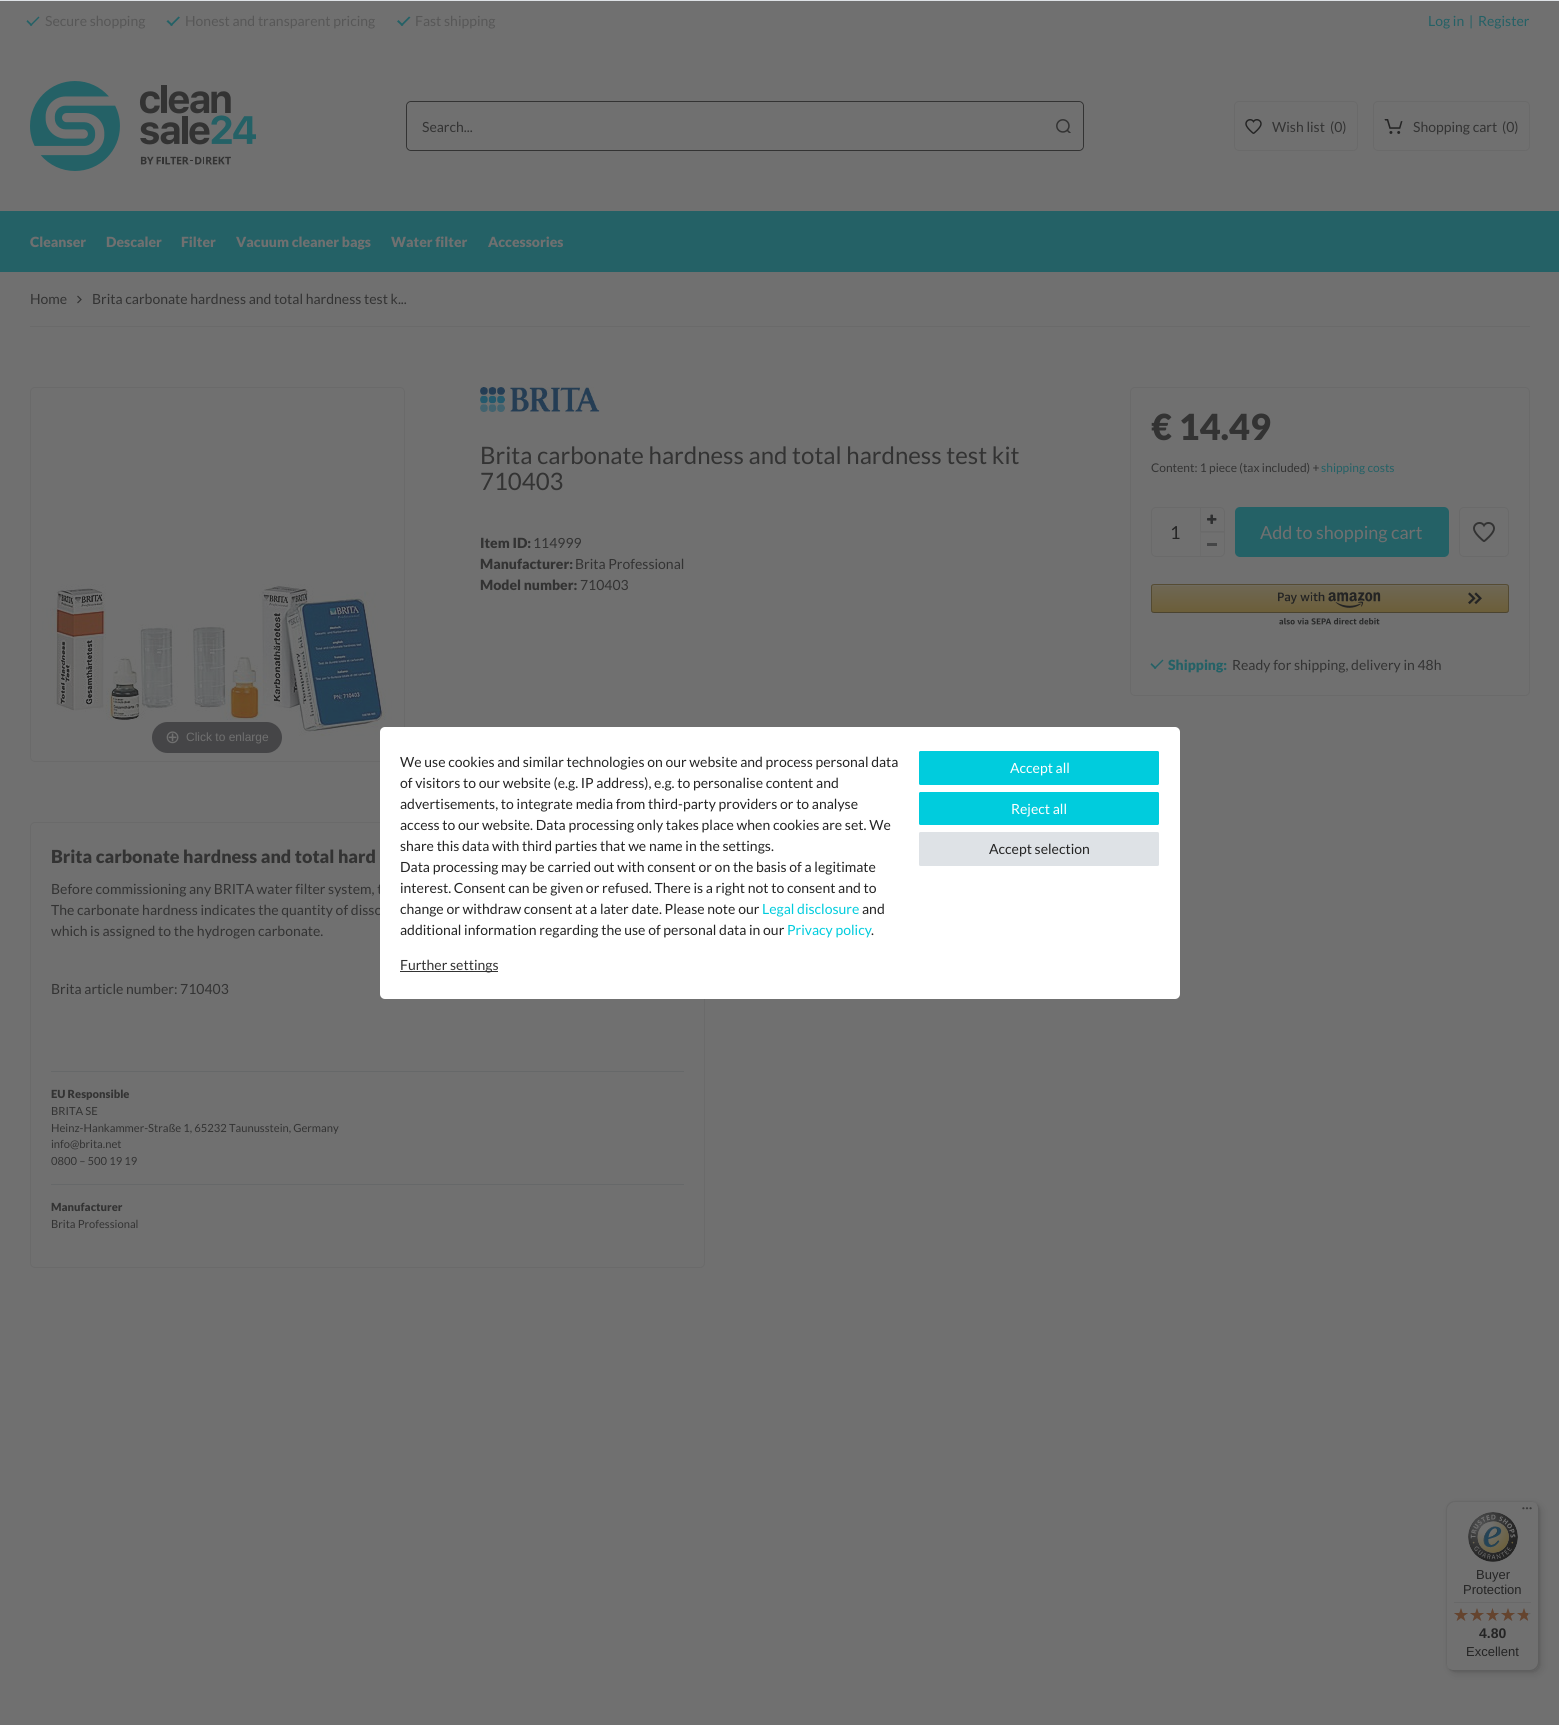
#include <cairo.h>
#include <math.h>
#include <stddef.h>


static void rgb(cairo_t *cr, int r, int g, int b)
{
	cairo_set_source_rgb(cr, r / 255.0, g / 255.0, b / 255.0);
}

static void face(cairo_t *cr, const char *family, double size, int italic, int bold)
{
	cairo_select_font_face(cr, family, italic ? CAIRO_FONT_SLANT_ITALIC : CAIRO_FONT_SLANT_NORMAL,
		bold ? CAIRO_FONT_WEIGHT_BOLD : CAIRO_FONT_WEIGHT_NORMAL);
	cairo_set_font_size(cr, size);
}

static void label(cairo_t *cr, double x, double y, const char *s)
{
	cairo_move_to(cr, x, y);
	cairo_show_text(cr, s);
}

static void rect(cairo_t *cr, double x, double y, double w, double h)
{
	cairo_rectangle(cr, x, y, w, h);
	cairo_fill(cr);
}

static void rrect(cairo_t *cr, double x, double y, double w, double h, double r)
{
	cairo_new_sub_path(cr);
	cairo_arc(cr, x + w - r, y + h - r, r, 0, M_PI / 2);
	cairo_arc(cr, x + r, y + h - r, r, M_PI / 2, M_PI);
	cairo_arc(cr, x + r, y + r, r, M_PI, 1.5 * M_PI);
	cairo_arc(cr, x + w - r, y + r, r, 1.5 * M_PI, 2 * M_PI);
	cairo_close_path(cr);
}

static void soft_shadow(cairo_t *cr, double x, double y, double w, double h, double r, double blur, double alpha)
{
	cairo_push_group_with_content(cr, CAIRO_CONTENT_ALPHA);
	cairo_set_operator(cr, CAIRO_OPERATOR_SOURCE);
	for (int i = 15; i >= -15 && fmin(w, h) + blur * i / 3 > 0; i -= 2) {
		double e = blur * i / 6;
		cairo_set_source_rgba(cr, 0, 0, 0, alpha * erfc((i - 1) / 8.5) / 2);
		rrect(cr, x - e, y - e, w + 2 * e, h + 2 * e, fmax(0, fmin(r + e + blur * .6, fmin(w, h) / 2 + e)));
		cairo_fill(cr);
	}
	cairo_pattern_t *soft = cairo_pop_group(cr);
	cairo_mask(cr, soft);
	cairo_pattern_destroy(soft);
}

static void image(cairo_t *cr, const char *path, double x, double y, double w, double h)
{
	cairo_surface_t *image = cairo_image_surface_create_from_png(path);
	cairo_save(cr);
	cairo_set_source_surface(cr, image, x, y);
	cairo_rectangle(cr, x, y, w, h);
	cairo_fill(cr);
	cairo_restore(cr);
	cairo_surface_destroy(image);
}

static void draw(cairo_t *cr) {
	cairo_pattern_t *gradient;
	rgb(cr, 112, 112, 112);
	cairo_paint(cr);
	rgb(cr, 36, 97, 102);
	cairo_new_path(cr);
	cairo_move_to(cr, 38.5, 16.5);
	cairo_line_to(cr, 39.5, 17.5);
	cairo_line_to(cr, 31, 26);
	cairo_line_to(cr, 30, 25);
	cairo_close_path(cr);
	cairo_fill(cr);
	cairo_new_path(cr);
	cairo_move_to(cr, 27.5, 20);
	cairo_line_to(cr, 32.5, 25);
	cairo_line_to(cr, 31, 26);
	cairo_line_to(cr, 26.5, 21.5);
	cairo_close_path(cr);
	cairo_fill(cr);
	face(cr, "Lato", 14, 0, 0);
	rgb(cr, 87, 87, 87);
	label(cr, 45, 26, "Secure shopping");
	rgb(cr, 36, 97, 102);
	cairo_new_path(cr);
	cairo_move_to(cr, 178.5, 16.5);
	cairo_line_to(cr, 180, 17.5);
	cairo_line_to(cr, 171.5, 26);
	cairo_line_to(cr, 170, 25);
	cairo_close_path(cr);
	cairo_fill(cr);
	cairo_new_path(cr);
	cairo_move_to(cr, 168, 20);
	cairo_line_to(cr, 173, 25);
	cairo_line_to(cr, 171.5, 26);
	cairo_line_to(cr, 166.5, 21.5);
	cairo_close_path(cr);
	cairo_fill(cr);
	rgb(cr, 87, 87, 87);
	label(cr, 185, 26, "Honest and transparent pricing");
	rgb(cr, 36, 97, 102);
	cairo_new_path(cr);
	cairo_move_to(cr, 409, 16.5);
	cairo_line_to(cr, 410.5, 17.5);
	cairo_line_to(cr, 402, 26);
	cairo_line_to(cr, 400.5, 25);
	cairo_close_path(cr);
	cairo_fill(cr);
	cairo_new_path(cr);
	cairo_move_to(cr, 398.5, 20);
	cairo_line_to(cr, 403.5, 25);
	cairo_line_to(cr, 402, 26);
	cairo_line_to(cr, 397, 21.5);
	cairo_close_path(cr);
	cairo_fill(cr);
	rgb(cr, 87, 87, 87);
	label(cr, 415, 26, "Fast shipping");
	rgb(cr, 36, 97, 102);
	label(cr, 1428, 26, "Log in");
	label(cr, 1469, 26, "|");
	label(cr, 1478, 26, "Register");
	image(cr, "image0.png", 30, 81, 226, 90);
	rrect(cr, 406.5, 101.5, 677, 49, 4.5);
	rgb(cr, 51, 51, 51);
	cairo_set_line_width(cr, 1);
	cairo_stroke(cr);
	rgb(cr, 112, 112, 112);
	rrect(cr, 407, 102, 636, 48, 5);
	cairo_fill(cr);
	rgb(cr, 51, 51, 51);
	label(cr, 422, 132, "Search...");
	rgb(cr, 112, 112, 112);
	rrect(cr, 1043, 102, 40, 48, 5);
	cairo_fill(cr);
	image(cr, "image1.png", 1056, 119, 15, 14);
	rrect(cr, 1234.5, 101.5, 123, 49, 4.5);
	rgb(cr, 106, 106, 106);
	cairo_stroke(cr);
	image(cr, "image2.png", 1245, 119, 17, 15);
	rgb(cr, 51, 51, 51);
	label(cr, 1272, 132, "Wish list");
	label(cr, 1330, 132, "(0)");
	rrect(cr, 1373.5, 101.5, 156, 49, 4.5);
	rgb(cr, 106, 106, 106);
	cairo_stroke(cr);
	image(cr, "image3.png", 1384, 119, 19, 15);
	rgb(cr, 51, 51, 51);
	label(cr, 1413, 132, "Shopping cart");
	label(cr, 1502, 132, "(0)");
	rgb(cr, 36, 97, 102);
	rect(cr, 0, 211, 1559, 61);
	face(cr, "Lato Black", 14, 0, 0);
	rgb(cr, 112, 112, 112);
	label(cr, 30, 247, "Cleanser");
	label(cr, 106, 247, "Descaler");
	label(cr, 181, 247, "Filter");
	label(cr, 236, 247, "Vacuum cleaner bags");
	label(cr, 391, 247, "Water filter");
	label(cr, 488, 247, "Accessories");
	rgb(cr, 106, 106, 106);
	rect(cr, 30, 326, 1500, 1);
	face(cr, "Lato", 14, 0, 0);
	rgb(cr, 51, 51, 51);
	label(cr, 30, 304, "Home");
	cairo_new_path(cr);
	cairo_move_to(cr, 77.5, 296);
	cairo_line_to(cr, 81, 299.5);
	cairo_line_to(cr, 77.5, 303);
	cairo_set_line_width(cr, 1.2);
	cairo_stroke(cr);
	label(cr, 92, 304, "Brita carbonate hardness and total hardness test k...");
	image(cr, "image4.png", 480, 387, 120, 25);
	face(cr, "Lato", 24, 0, 0);
	label(cr, 480, 464, "Brita carbonate hardness and total hardness test kit");
	label(cr, 480, 490, "710403");
	face(cr, "Lato Black", 14, 0, 0);
	label(cr, 480, 548, "Item ID:");
	face(cr, "Lato", 14, 0, 0);
	label(cr, 533, 548, "114999");
	face(cr, "Lato Black", 14, 0, 0);
	label(cr, 480, 569, "Manufacturer:");
	face(cr, "Lato", 14, 0, 0);
	label(cr, 575, 569, "Brita Professional");
	face(cr, "Lato Black", 14, 0, 0);
	label(cr, 480, 590, "Model number:");
	face(cr, "Lato", 14, 0, 0);
	label(cr, 580, 590, "710403");
	rrect(cr, 1130.5, 387.5, 399, 308, 4.5);
	rgb(cr, 106, 106, 106);
	cairo_set_line_width(cr, 1);
	cairo_stroke(cr);
	face(cr, "Lato Black", 36, 0, 0);
	rgb(cr, 51, 51, 51);
	label(cr, 1151, 440, "€ 14.49");
	face(cr, "Lato", 12, 0, 0);
	label(cr, 1151, 472, "Content: 1 piece (tax included) +");
	rgb(cr, 36, 97, 102);
	label(cr, 1321, 472, "shipping costs");
	rrect(cr, 1151.5, 507.5, 73, 49, 4.5);
	rgb(cr, 106, 106, 106);
	cairo_stroke(cr);
	face(cr, "Lato", 18, 0, 0);
	rgb(cr, 36, 36, 36);
	label(cr, 1170, 539, "1");
	rgb(cr, 106, 106, 106);
	rect(cr, 1200, 531, 24, 1);
	rect(cr, 1200, 508, 1, 24);
	image(cr, "image5.png", 1207, 514, 10, 10);
	rgb(cr, 108, 108, 108);
	rect(cr, 1200, 532, 24, 1);
	rect(cr, 1200, 532, 1, 24);
	rgb(cr, 69, 70, 71);
	rect(cr, 1207, 543, 10, 3);
	rgb(cr, 36, 97, 102);
	rrect(cr, 1235, 507, 214, 50, 5);
	cairo_fill(cr);
	rgb(cr, 112, 112, 112);
	label(cr, 1260, 539, "Add to shopping cart");
	rrect(cr, 1459.5, 507.5, 49, 49, 4.5);
	rgb(cr, 106, 106, 106);
	cairo_stroke(cr);
	image(cr, "image6.png", 1473, 522, 22, 20);
	cairo_save(cr);
	rrect(cr, 1151, 584, 358, 29, 3);
	cairo_clip(cr);
	gradient = cairo_pattern_create_linear(1330, 585, 1330, 612);
	cairo_pattern_add_color_stop_rgba(gradient, 0, 0.431, 0.404, 0.333, 1);
	cairo_pattern_add_color_stop_rgba(gradient, 1, 0.424, 0.369, 0.227, 1);
	cairo_set_source(cr, gradient);
	cairo_pattern_destroy(gradient);
	rect(cr, 1151, 585, 358, 27);
	cairo_restore(cr);
	cairo_set_source_rgba(cr, 0.439, 0.439, 0.439, 0.4);
	cairo_new_path(cr);
	cairo_move_to(cr, 1154, 586);
	cairo_line_to(cr, 1506, 586);
	cairo_curve_to(cr, 1507, 586, 1508, 587, 1508, 588);
	cairo_curve_to(cr, 1508, 587, 1508, 585, 1506, 585);
	cairo_line_to(cr, 1154, 585);
	cairo_curve_to(cr, 1152, 585, 1152, 587, 1152, 588);
	cairo_curve_to(cr, 1152, 587, 1153, 586, 1154, 586);
	cairo_close_path(cr);
	cairo_fill(cr);
	cairo_new_path(cr);
	cairo_move_to(cr, 1152, 585);
	cairo_line_to(cr, 1154, 584.5);
	cairo_line_to(cr, 1506, 584.5);
	cairo_line_to(cr, 1508, 585);
	rgb(cr, 86, 76, 51);
	cairo_stroke(cr);
	cairo_new_path(cr);
	cairo_move_to(cr, 1508, 585);
	cairo_curve_to(cr, 1508, 585.5, 1508.5, 586.5, 1508.5, 587);
	cairo_line_to(cr, 1508.5, 610);
	cairo_curve_to(cr, 1508.5, 610.5, 1508, 611.5, 1508, 612);
	rgb(cr, 83, 74, 50);
	cairo_stroke(cr);
	cairo_new_path(cr);
	cairo_move_to(cr, 1508, 612);
	cairo_line_to(cr, 1506, 612.5);
	cairo_line_to(cr, 1154, 612.5);
	cairo_line_to(cr, 1152, 612);
	rgb(cr, 75, 68, 48);
	cairo_stroke(cr);
	cairo_new_path(cr);
	cairo_move_to(cr, 1152, 612);
	cairo_curve_to(cr, 1152, 611.5, 1151.5, 610.5, 1151.5, 610);
	cairo_line_to(cr, 1151.5, 587);
	cairo_curve_to(cr, 1151.5, 586.5, 1152, 585.5, 1152, 585);
	rgb(cr, 83, 74, 50);
	cairo_stroke(cr);
	image(cr, "image7.png", 1278, 592, 103, 16);
	image(cr, "image8.png", 1468, 592, 14, 13);
	image(cr, "image9.png", 1279, 618, 101, 7);
	rgb(cr, 36, 97, 102);
	cairo_new_path(cr);
	cairo_move_to(cr, 1162.5, 659.5);
	cairo_line_to(cr, 1163.5, 660.5);
	cairo_line_to(cr, 1155, 669);
	cairo_line_to(cr, 1154, 668);
	cairo_close_path(cr);
	cairo_fill(cr);
	cairo_new_path(cr);
	cairo_move_to(cr, 1151.5, 663);
	cairo_line_to(cr, 1156.5, 668);
	cairo_line_to(cr, 1155, 669);
	cairo_line_to(cr, 1150.5, 664.5);
	cairo_close_path(cr);
	cairo_fill(cr);
	face(cr, "Lato Black", 14, 0, 0);
	label(cr, 1168, 670, "Shipping:");
	face(cr, "Lato", 14, 0, 0);
	rgb(cr, 51, 51, 51);
	label(cr, 1232, 670, "Ready for shipping, delivery in 48h");
	rrect(cr, 30.5, 387.5, 374, 374, 4.5);
	rgb(cr, 106, 106, 106);
	cairo_stroke(cr);
	image(cr, "image10.png", 42, 584, 350, 153);
	rgb(cr, 69, 69, 71);
	rrect(cr, 152, 722, 130, 31, 15.5);
	cairo_fill(cr);
	face(cr, "DejaVu Sans", 18, 0, 0);
	rgb(cr, 112, 112, 112);
	label(cr, 165, 743, "⊕");
	face(cr, "Liberation Sans", 12, 0, 0);
	label(cr, 186, 741, "Click to enlarge");
	rrect(cr, 30.5, 822.5, 674, 445, 4.5);
	rgb(cr, 106, 106, 106);
	cairo_stroke(cr);
	face(cr, "Lato Black", 18, 0, 0);
	rgb(cr, 51, 51, 51);
	label(cr, 51, 863, "Brita carbonate hardness and total hard");
	face(cr, "Lato", 14, 0, 0);
	label(cr, 51, 894, "Before commissioning any BRITA water filter system, t");
	label(cr, 51, 915, "The carbonate hardness indicates the quantity of disso");
	label(cr, 51, 936, "which is assigned to the hydrogen carbonate.");
	label(cr, 51, 994, "Brita article number: 710403");
	rgb(cr, 102, 104, 105);
	rect(cr, 51, 1071, 633, 1);
	face(cr, "Lato Black", 11.2, 0, 0);
	rgb(cr, 51, 51, 51);
	label(cr, 51, 1098, "EU Responsible");
	face(cr, "Lato", 11.2, 0, 0);
	label(cr, 51, 1115, "BRITA SE");
	label(cr, 51, 1132, "Heinz-Hankammer-Straße 1, 65232 Taunusstein, Germany");
	label(cr, 51, 1148, "info@brita.net");
	label(cr, 51, 1165, "0800 – 500 19 19");
	rgb(cr, 102, 104, 105);
	rect(cr, 51, 1184, 633, 1);
	face(cr, "Lato Black", 11.2, 0, 0);
	rgb(cr, 51, 51, 51);
	label(cr, 51, 1211, "Manufacturer");
	face(cr, "Lato", 11.2, 0, 0);
	label(cr, 51, 1228, "Brita Professional");
	rgb(cr, 222, 226, 230);
	rect(cr, 0, 0, 1559, 1);
	rgb(cr, 255, 255, 255);
	rrect(cr, 380, 727, 800, 272, 5);
	cairo_fill(cr);
	face(cr, "Lato", 14, 0, 0);
	rgb(cr, 36, 36, 36);
	label(cr, 400, 767, "We use cookies and similar technologies on our website and process personal data");
	label(cr, 400, 788, "of visitors to our website (e.g. IP address), e.g. to personalise content and");
	label(cr, 400, 809, "advertisements, to integrate media from third-party providers or to analyse");
	label(cr, 400, 830, "access to our website. Data processing only takes place when cookies are set. We");
	label(cr, 400, 851, "share this data with third parties that we name in the settings.");
	label(cr, 400, 872, "Data processing may be carried out with consent or on the basis of a legitimate");
	label(cr, 400, 893, "interest. Consent can be given or refused. There is a right not to consent and to");
	label(cr, 400, 914, "change or withdraw consent at a later date. Please note our");
	rgb(cr, 0, 204, 221);
	label(cr, 762, 914, "Legal disclosure");
	rgb(cr, 36, 36, 36);
	label(cr, 862, 914, "and");
	label(cr, 400, 935, "additional information regarding the use of personal data in our");
	rgb(cr, 0, 204, 221);
	label(cr, 787, 935, "Privacy policy");
	rgb(cr, 36, 36, 36);
	label(cr, 871, 935, ".");
	rgb(cr, 51, 51, 51);
	rect(cr, 400, 971, 98, 1);
	label(cr, 400, 970, "Further settings");
	rgb(cr, 0, 204, 221);
	rrect(cr, 919.5, 751.5, 239, 33, 1);
	cairo_fill_preserve(cr);
	cairo_stroke(cr);
	rgb(cr, 255, 255, 255);
	label(cr, 1010, 773, "Accept all");
	rgb(cr, 0, 204, 221);
	rrect(cr, 919.5, 792.5, 239, 32, 1);
	cairo_fill_preserve(cr);
	cairo_stroke(cr);
	rgb(cr, 255, 255, 255);
	label(cr, 1011, 814, "Reject all");
	rgb(cr, 222, 226, 230);
	rrect(cr, 919.5, 832.5, 239, 33, 1);
	cairo_fill_preserve(cr);
	cairo_stroke(cr);
	rgb(cr, 36, 36, 36);
	label(cr, 989, 854, "Accept selection");
	rgb(cr, 36, 36, 36);
	soft_shadow(cr, 1449, 1504, 93, 170, 8, 4, 0.15);
	soft_shadow(cr, 1447, 1502, 93, 170, 8, 1, 0.15);
	rgb(cr, 112, 112, 112);
	rrect(cr, 1446, 1501, 93, 170, 8);
	cairo_fill(cr);
	rgb(cr, 104, 104, 104);
	cairo_new_path(cr);
	cairo_move_to(cr, 1455, 1502);
	cairo_line_to(cr, 1532, 1502);
	cairo_curve_to(cr, 1534, 1502, 1536, 1503, 1538, 1505);
	cairo_curve_to(cr, 1536, 1503, 1534, 1501, 1531, 1501);
	cairo_line_to(cr, 1454, 1501);
	cairo_curve_to(cr, 1450, 1501, 1446, 1505, 1446, 1509);
	cairo_line_to(cr, 1446, 1663);
	cairo_curve_to(cr, 1446, 1666, 1448, 1668, 1450, 1670);
	cairo_curve_to(cr, 1448, 1668, 1447, 1666, 1447, 1664);
	cairo_line_to(cr, 1447, 1510);
	cairo_curve_to(cr, 1447, 1506, 1451, 1502, 1455, 1502);
	cairo_close_path(cr);
	cairo_fill(cr);
	rgb(cr, 97, 97, 97);
	cairo_new_path(cr);
	cairo_move_to(cr, 1447, 1667);
	cairo_curve_to(cr, 1449, 1669, 1451, 1671, 1454, 1671);
	cairo_line_to(cr, 1531, 1671);
	cairo_curve_to(cr, 1535, 1671, 1539, 1667, 1539, 1663);
	cairo_line_to(cr, 1539, 1509);
	cairo_curve_to(cr, 1539, 1506, 1537, 1504, 1535, 1502);
	cairo_curve_to(cr, 1537, 1504, 1538, 1506, 1538, 1508);
	cairo_line_to(cr, 1538, 1662);
	cairo_curve_to(cr, 1538, 1666, 1534, 1670, 1530, 1670);
	cairo_line_to(cr, 1453, 1670);
	cairo_curve_to(cr, 1451, 1670, 1449, 1669, 1447, 1667);
	cairo_close_path(cr);
	cairo_fill(cr);
	cairo_set_source_rgba(cr, 0.2, 0.2, 0.2, 0.2);
	cairo_new_path(cr);
	cairo_move_to(cr, 1448, 1668);
	cairo_curve_to(cr, 1449, 1670, 1452, 1671, 1454, 1671);
	cairo_line_to(cr, 1531, 1671);
	cairo_curve_to(cr, 1535, 1671, 1539, 1667, 1539, 1663);
	cairo_line_to(cr, 1539, 1509);
	cairo_curve_to(cr, 1539, 1507, 1538, 1504, 1536, 1503);
	cairo_curve_to(cr, 1537, 1504, 1538, 1506, 1538, 1508);
	cairo_line_to(cr, 1538, 1662);
	cairo_curve_to(cr, 1538, 1667, 1535, 1670, 1530, 1670);
	cairo_line_to(cr, 1453, 1670);
	cairo_curve_to(cr, 1451, 1670, 1449, 1669, 1448, 1668);
	cairo_close_path(cr);
	cairo_fill(cr);
	cairo_set_source_rgba(cr, 0.439, 0.439, 0.439, 0.3);
	cairo_new_path(cr);
	cairo_move_to(cr, 1446, 1662);
	cairo_line_to(cr, 1446, 1663);
	cairo_curve_to(cr, 1446, 1667, 1450, 1671, 1454, 1671);
	cairo_line_to(cr, 1531, 1671);
	cairo_curve_to(cr, 1535, 1671, 1539, 1667, 1539, 1663);
	cairo_line_to(cr, 1539, 1509);
	cairo_curve_to(cr, 1539, 1507, 1538, 1504, 1536, 1503);
	cairo_curve_to(cr, 1537, 1504, 1538, 1506, 1538, 1508);
	cairo_line_to(cr, 1538, 1662);
	cairo_curve_to(cr, 1538, 1667, 1535, 1670, 1530, 1670);
	cairo_line_to(cr, 1454, 1670);
	cairo_curve_to(cr, 1449, 1670, 1446, 1667, 1446, 1662);
	cairo_close_path(cr);
	cairo_fill(cr);
	image(cr, "image11.png", 1522, 1507, 10, 3);
	image(cr, "image12.png", 1468, 1512, 50, 50);
	face(cr, "Liberation Sans", 13, 0, 0);
	rgb(cr, 36, 36, 36);
	label(cr, 1476, 1579, "Buyer");
	label(cr, 1463, 1594, "Protection");
	rgb(cr, 104, 104, 104);
	rect(cr, 1454, 1602, 77, 1);
	image(cr, "image13.png", 1454, 1608, 14, 13);
	image(cr, "image13.png", 1470, 1608, 14, 13);
	image(cr, "image14.png", 1486, 1608, 13, 13);
	image(cr, "image13.png", 1501, 1608, 14, 13);
	image(cr, "image13.png", 1517, 1608, 14, 13);
	image(cr, "image15.png", 1454, 1608, 14, 13);
	image(cr, "image15.png", 1470, 1608, 14, 13);
	image(cr, "image16.png", 1486, 1608, 13, 13);
	image(cr, "image15.png", 1501, 1608, 14, 13);
	image(cr, "image17.png", 1517, 1608, 11, 13);
	face(cr, "Liberation Sans", 14, 0, 1);
	rgb(cr, 36, 36, 36);
	label(cr, 1479, 1638, "4.80");
	face(cr, "Liberation Sans", 13, 0, 0);
	label(cr, 1466, 1656, "Excellent");
}

int main(void) {
	cairo_surface_t *surface = cairo_image_surface_create(CAIRO_FORMAT_RGB24, 1559, 1725);
	cairo_t *cr = cairo_create(surface);
	cairo_font_options_t *options = cairo_font_options_create();
	cairo_font_options_set_hint_metrics(options, CAIRO_HINT_METRICS_OFF);
	cairo_font_options_set_hint_style(options, CAIRO_HINT_STYLE_NONE);
	cairo_set_font_options(cr, options);
	cairo_set_miter_limit(cr, 4);
	draw(cr);
	cairo_surface_write_to_png(surface, "render.png");
	cairo_font_options_destroy(options);
	cairo_destroy(cr);
	cairo_surface_destroy(surface);
	return 0;
}
